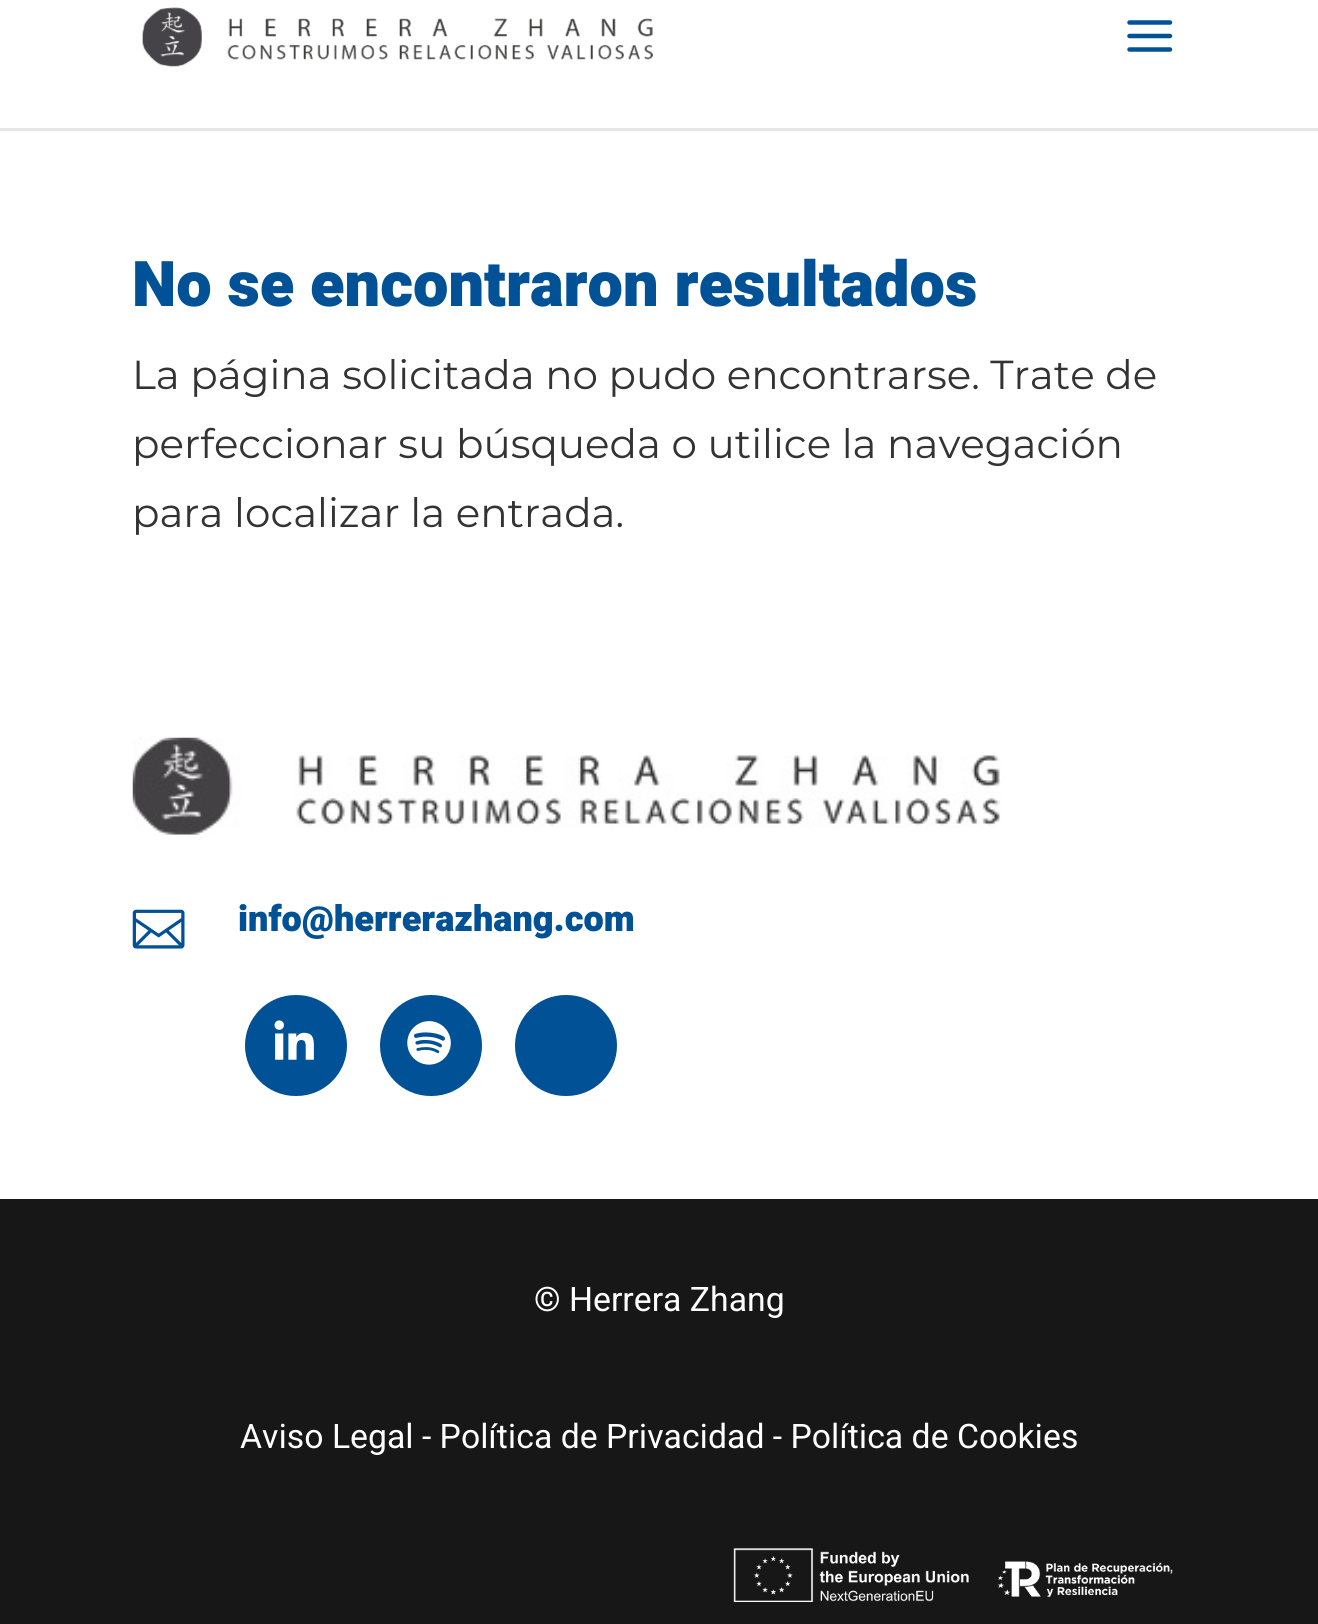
#include <cairo.h>
#include <math.h>
#include <stddef.h>


static void rgb(cairo_t *cr, int r, int g, int b)
{
	cairo_set_source_rgb(cr, r / 255.0, g / 255.0, b / 255.0);
}

static void face(cairo_t *cr, const char *family, double size, int italic, int bold)
{
	cairo_select_font_face(cr, family, italic ? CAIRO_FONT_SLANT_ITALIC : CAIRO_FONT_SLANT_NORMAL,
		bold ? CAIRO_FONT_WEIGHT_BOLD : CAIRO_FONT_WEIGHT_NORMAL);
	cairo_set_font_size(cr, size);
}

static void label(cairo_t *cr, double x, double y, const char *s)
{
	cairo_move_to(cr, x, y);
	cairo_show_text(cr, s);
}

static void rect(cairo_t *cr, double x, double y, double w, double h)
{
	cairo_rectangle(cr, x, y, w, h);
	cairo_fill(cr);
}

static void rrect(cairo_t *cr, double x, double y, double w, double h, double r)
{
	cairo_new_sub_path(cr);
	cairo_arc(cr, x + w - r, y + h - r, r, 0, M_PI / 2);
	cairo_arc(cr, x + r, y + h - r, r, M_PI / 2, M_PI);
	cairo_arc(cr, x + r, y + r, r, M_PI, 1.5 * M_PI);
	cairo_arc(cr, x + w - r, y + r, r, 1.5 * M_PI, 2 * M_PI);
	cairo_close_path(cr);
}

static void image(cairo_t *cr, const char *path, double x, double y, double w, double h)
{
	cairo_surface_t *image = cairo_image_surface_create_from_png(path);
	cairo_save(cr);
	cairo_set_source_surface(cr, image, x, y);
	cairo_rectangle(cr, x, y, w, h);
	cairo_fill(cr);
	cairo_restore(cr);
	cairo_surface_destroy(image);
}

static void draw(cairo_t *cr) {
	rgb(cr, 255, 255, 255);
	cairo_paint(cr);
	rgb(cr, 230, 230, 230);
	cairo_new_path(cr);
	cairo_move_to(cr, 0, 128);
	cairo_line_to(cr, 0, 131);
	cairo_line_to(cr, 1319, 131);
	cairo_line_to(cr, 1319, -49);
	cairo_line_to(cr, 1318, -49);
	cairo_line_to(cr, 1318, 128);
	cairo_close_path(cr);
	cairo_fill(cr);
	image(cr, "image0.png", 142, 7, 511, 60);
	image(cr, "image1.png", 1127, 20, 46, 32);
	face(cr, "Heebo Black", 63, 0, 0);
	rgb(cr, 0, 81, 149);
	label(cr, 132, 306, "No se encontraron resultados");
	face(cr, "Montserrat Thin", 40.5, 0, 0);
	rgb(cr, 51, 51, 51);
	label(cr, 132, 389, "La página solicitada no pudo encontrarse. Trate de");
	label(cr, 132, 458, "perfeccionar su búsqueda o utilice la navegación");
	label(cr, 132, 527, "para localizar la entrada.");
	image(cr, "image2.png", 132, 737, 869, 98);
	image(cr, "image3.png", 132, 909, 53, 40);
	face(cr, "Heebo Black", 36, 0, 0);
	rgb(cr, 0, 81, 149);
	label(cr, 238, 931, "info@herrerazhang.com");
	rrect(cr, 245, 995, 102, 101, 50.5);
	cairo_fill(cr);
	image(cr, "image4.png", 274, 1020, 40, 40);
	rrect(cr, 380, 995, 102, 101, 50.5);
	cairo_fill(cr);
	image(cr, "image5.png", 407, 1021, 44, 44);
	rrect(cr, 515, 995, 102, 101, 50.5);
	cairo_fill(cr);
	rgb(cr, 23, 23, 23);
	rect(cr, 0, 1199, 1318, 425);
	face(cr, "Heebo", 33.75, 0, 0);
	rgb(cr, 255, 255, 255);
	label(cr, 534, 1311, "© Herrera Zhang");
	label(cr, 240, 1448, "Aviso Legal - Política de Privacidad - Política de Cookies");
	image(cr, "image6.png", 733, 1548, 440, 54);
}

int main(void) {
	cairo_surface_t *surface = cairo_image_surface_create(CAIRO_FORMAT_RGB24, 1318, 1624);
	cairo_t *cr = cairo_create(surface);
	cairo_font_options_t *options = cairo_font_options_create();
	cairo_font_options_set_hint_metrics(options, CAIRO_HINT_METRICS_OFF);
	cairo_font_options_set_hint_style(options, CAIRO_HINT_STYLE_NONE);
	cairo_set_font_options(cr, options);
	cairo_set_miter_limit(cr, 4);
	draw(cr);
	cairo_surface_write_to_png(surface, "render.png");
	cairo_font_options_destroy(options);
	cairo_destroy(cr);
	cairo_surface_destroy(surface);
	return 0;
}
